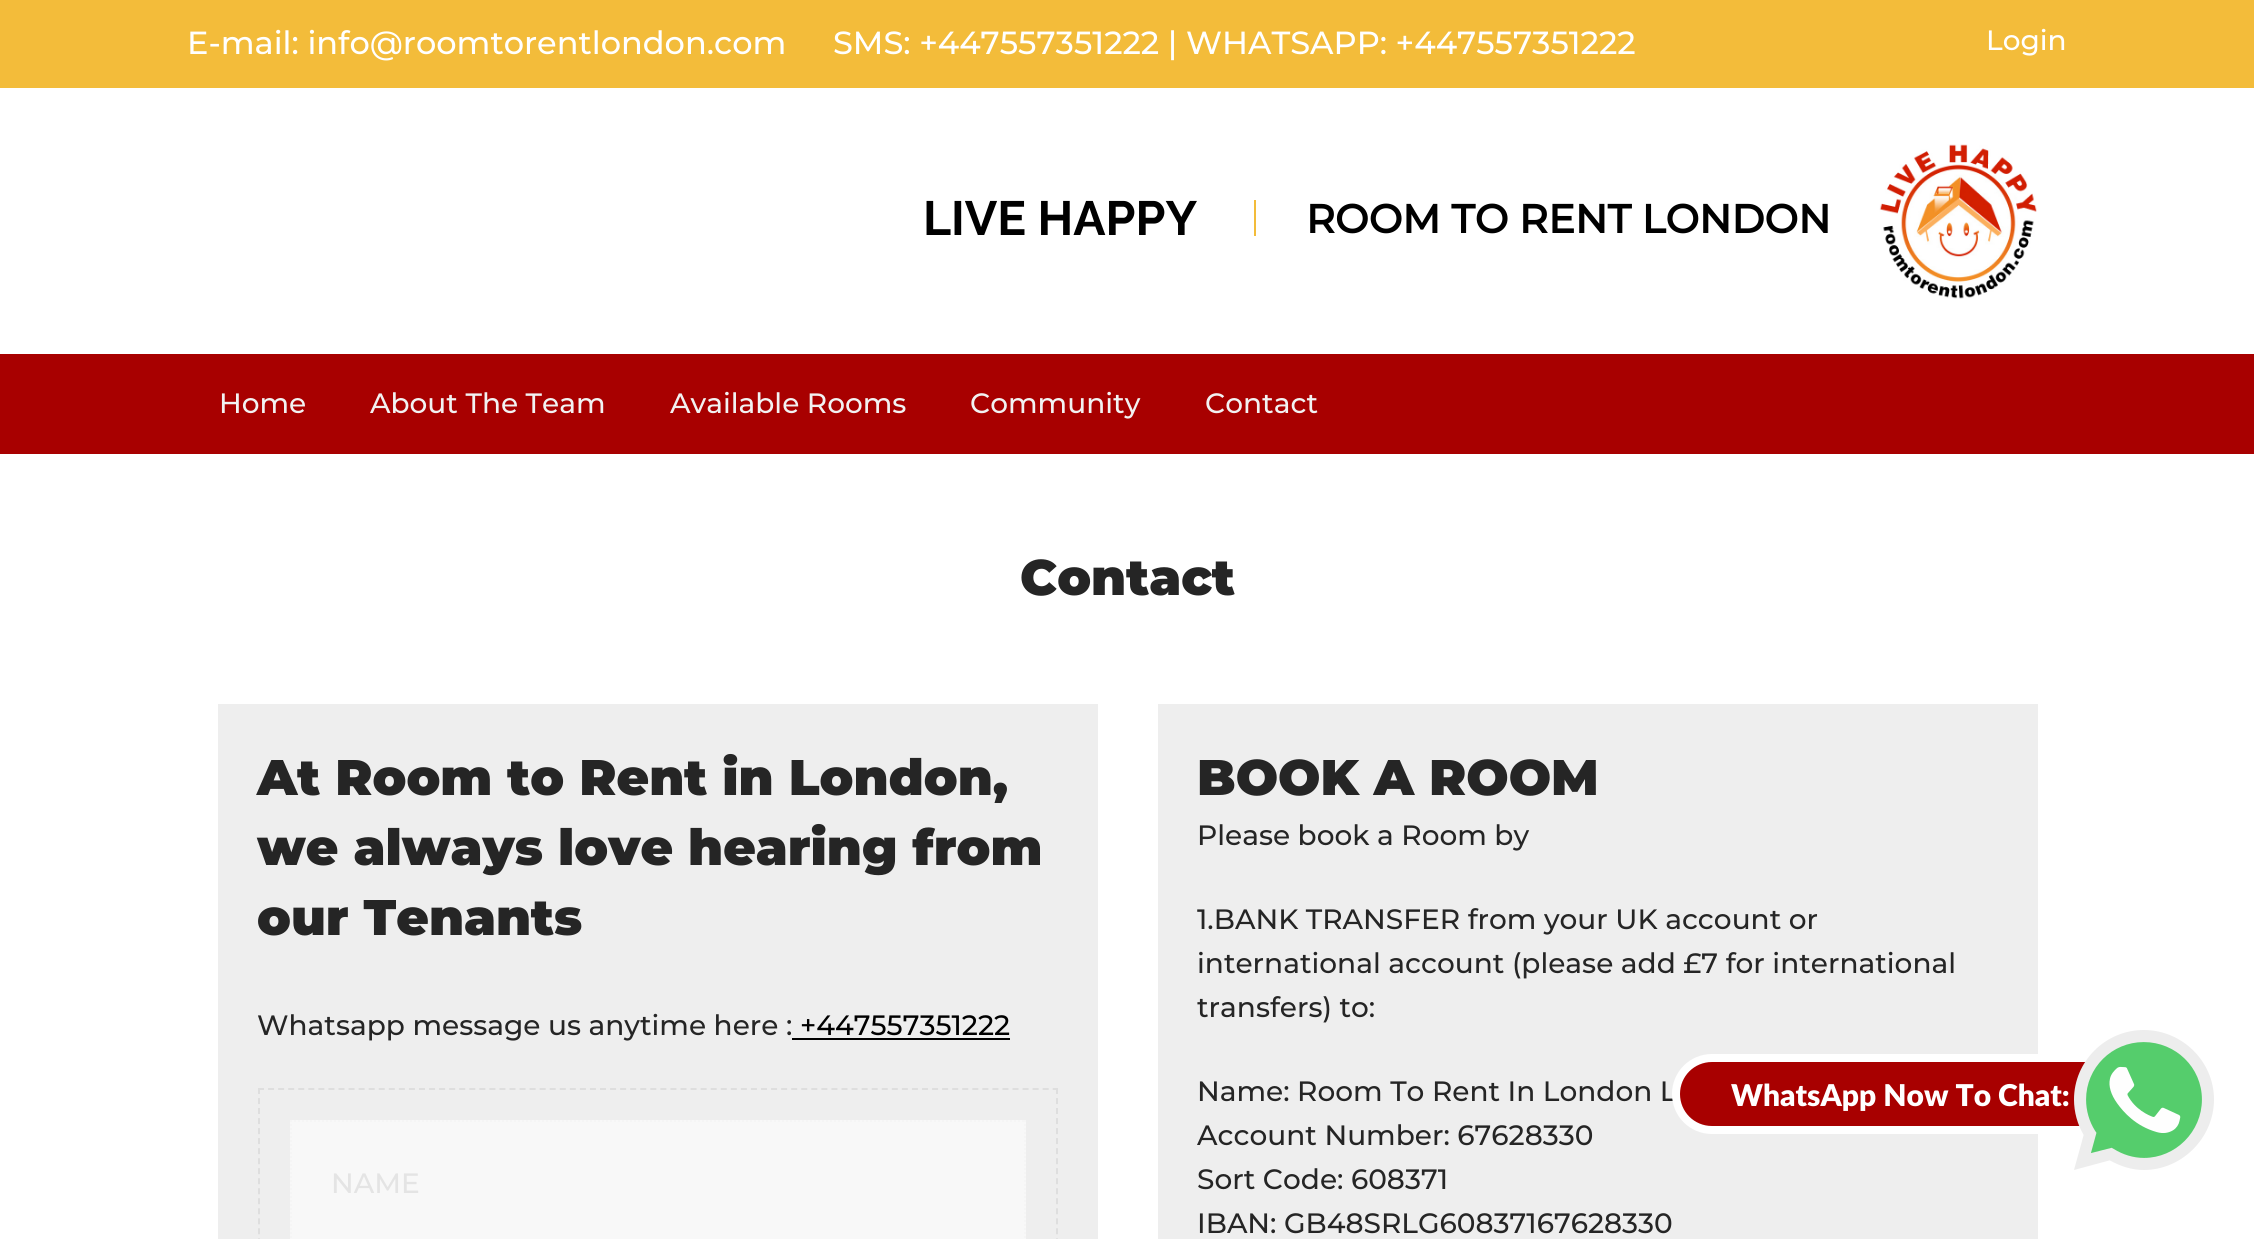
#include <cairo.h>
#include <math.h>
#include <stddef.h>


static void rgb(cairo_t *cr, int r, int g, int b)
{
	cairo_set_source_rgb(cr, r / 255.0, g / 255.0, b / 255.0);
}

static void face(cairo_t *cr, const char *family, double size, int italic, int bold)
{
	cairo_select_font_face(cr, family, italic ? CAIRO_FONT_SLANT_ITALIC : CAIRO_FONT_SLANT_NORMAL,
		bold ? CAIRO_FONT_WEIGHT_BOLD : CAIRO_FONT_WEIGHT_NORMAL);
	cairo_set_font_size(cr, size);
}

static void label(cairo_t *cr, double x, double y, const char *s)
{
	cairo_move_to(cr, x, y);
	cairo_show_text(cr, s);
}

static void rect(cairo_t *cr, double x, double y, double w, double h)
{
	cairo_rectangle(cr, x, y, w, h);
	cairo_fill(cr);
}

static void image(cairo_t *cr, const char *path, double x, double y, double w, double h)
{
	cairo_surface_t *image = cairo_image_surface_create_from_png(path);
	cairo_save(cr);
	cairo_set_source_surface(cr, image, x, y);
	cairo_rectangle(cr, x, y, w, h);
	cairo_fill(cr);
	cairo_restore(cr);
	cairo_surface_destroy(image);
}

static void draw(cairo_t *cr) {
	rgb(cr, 255, 255, 255);
	cairo_paint(cr);
	rgb(cr, 243, 188, 58);
	rect(cr, 0, 0, 2254, 88);
	face(cr, "Montserrat Medium", 32, 0, 0);
	rgb(cr, 255, 255, 255);
	label(cr, 187, 54, "E-mail: info@roomtorentlondon.com");
	label(cr, 833, 54, "SMS: +447557351222 | WHATSAPP: +447557351222");
	face(cr, "Montserrat Medium", 28, 0, 0);
	label(cr, 1986, 50, "Login");
	face(cr, "Raleway", 48, 0, 1);
	rgb(cr, 0, 0, 0);
	label(cr, 923, 235, "LIVE HAPPY");
	rgb(cr, 243, 188, 58);
	rect(cr, 1254, 200, 2, 36);
	face(cr, "Montserrat", 40, 0, 1);
	rgb(cr, 0, 0, 0);
	label(cr, 1306, 233, "ROOM TO RENT LONDON");
	image(cr, "image0.png", 1879, 144, 158, 155);
	rgb(cr, 168, 0, 0);
	rect(cr, 0, 354, 2254, 100);
	face(cr, "Montserrat Medium", 28, 0, 0);
	rgb(cr, 242, 242, 242);
	label(cr, 219, 413, "Home");
	label(cr, 370, 413, "About The Team");
	label(cr, 670, 413, "Available Rooms");
	label(cr, 970, 413, "Community");
	label(cr, 1205, 413, "Contact");
	face(cr, "Montserrat Black", 50, 0, 0);
	rgb(cr, 37, 37, 37);
	label(cr, 1020, 595, "Contact");
	rgb(cr, 238, 238, 238);
	rect(cr, 218, 704, 880, 535);
	rgb(cr, 37, 37, 37);
	label(cr, 257, 795, "At Room to Rent in London,");
	label(cr, 257, 865, "we always love hearing from");
	label(cr, 257, 935, "our Tenants");
	face(cr, "Montserrat Medium", 28, 0, 0);
	label(cr, 257, 1035, "Whatsapp message us anytime here :");
	rgb(cr, 0, 0, 0);
	label(cr, 800, 1035, "+447557351222");
	rect(cr, 792, 1038, 218, 2);
	cairo_new_path(cr);
	cairo_move_to(cr, 258, 1089);
	cairo_line_to(cr, 1058, 1089);
	rgb(cr, 222, 222, 222);
	cairo_set_dash(cr, (double[]){6, 4.06}, 2, 0);
	cairo_stroke(cr);
	cairo_new_path(cr);
	cairo_move_to(cr, 1057, 1088);
	cairo_line_to(cr, 1057, 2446);
	cairo_set_dash(cr, (double[]){6, 4.02}, 2, 0);
	cairo_stroke(cr);
	cairo_new_path(cr);
	cairo_move_to(cr, 259, 1088);
	cairo_line_to(cr, 259, 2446);
	cairo_stroke(cr);
	rgb(cr, 248, 248, 248);
	rect(cr, 290, 1120, 736, 119);
	cairo_new_path(cr);
	cairo_move_to(cr, 290, 1121);
	cairo_line_to(cr, 1026, 1121);
	rgb(cr, 245, 245, 245);
	cairo_set_dash(cr, (double[]){2, 2}, 2, 0);
	cairo_stroke(cr);
	cairo_new_path(cr);
	cairo_move_to(cr, 1025, 1120);
	cairo_line_to(cr, 1025, 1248);
	cairo_stroke(cr);
	cairo_new_path(cr);
	cairo_move_to(cr, 291, 1120);
	cairo_line_to(cr, 291, 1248);
	cairo_stroke(cr);
	rgb(cr, 228, 228, 228);
	label(cr, 331, 1193, "NAME");
	rgb(cr, 238, 238, 238);
	rect(cr, 1158, 704, 880, 535);
	face(cr, "Montserrat Black", 50, 0, 0);
	rgb(cr, 37, 37, 37);
	label(cr, 1197, 795, "BOOK A ROOM");
	face(cr, "Montserrat Medium", 28, 0, 0);
	label(cr, 1197, 845, "Please book a Room by");
	label(cr, 1197, 929, "1.BANK TRANSFER from your UK account or");
	label(cr, 1197, 973, "international account (please add £7 for international");
	label(cr, 1197, 1017, "transfers) to:");
	label(cr, 1197, 1101, "Name: Room To Rent In London L");
	label(cr, 1197, 1145, "Account Number: 67628330");
	label(cr, 1197, 1189, "Sort Code: 608371");
	label(cr, 1197, 1233, "IBAN: GB48SRLG60837167628330");
	rgb(cr, 168, 0, 0);
	cairo_new_path(cr);
	cairo_move_to(cr, 1712, 1058);
	cairo_line_to(cr, 2124, 1058);
	cairo_line_to(cr, 2124, 1130);
	cairo_line_to(cr, 1712, 1130);
	cairo_curve_to(cr, 1692, 1130, 1676, 1114, 1676, 1094);
	cairo_curve_to(cr, 1676, 1074, 1692, 1058, 1712, 1058);
	cairo_close_path(cr);
	cairo_fill_preserve(cr);
	rgb(cr, 255, 255, 255);
	cairo_set_line_width(cr, 8);
	cairo_set_dash(cr, NULL, 0, 0);
	cairo_stroke(cr);
	face(cr, "Lato Black", 30, 0, 0);
	label(cr, 1731, 1106, "WhatsApp Now To Chat:");
	image(cr, "image1.png", 2074, 1030, 140, 140);
}

int main(void) {
	cairo_surface_t *surface = cairo_image_surface_create(CAIRO_FORMAT_RGB24, 2254, 1239);
	cairo_t *cr = cairo_create(surface);
	cairo_font_options_t *options = cairo_font_options_create();
	cairo_font_options_set_hint_metrics(options, CAIRO_HINT_METRICS_OFF);
	cairo_font_options_set_hint_style(options, CAIRO_HINT_STYLE_NONE);
	cairo_set_font_options(cr, options);
	cairo_set_miter_limit(cr, 4);
	draw(cr);
	cairo_surface_write_to_png(surface, "render.png");
	cairo_font_options_destroy(options);
	cairo_destroy(cr);
	cairo_surface_destroy(surface);
	return 0;
}
